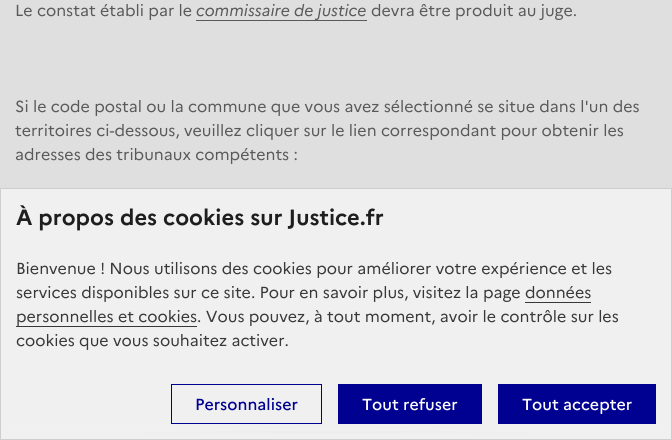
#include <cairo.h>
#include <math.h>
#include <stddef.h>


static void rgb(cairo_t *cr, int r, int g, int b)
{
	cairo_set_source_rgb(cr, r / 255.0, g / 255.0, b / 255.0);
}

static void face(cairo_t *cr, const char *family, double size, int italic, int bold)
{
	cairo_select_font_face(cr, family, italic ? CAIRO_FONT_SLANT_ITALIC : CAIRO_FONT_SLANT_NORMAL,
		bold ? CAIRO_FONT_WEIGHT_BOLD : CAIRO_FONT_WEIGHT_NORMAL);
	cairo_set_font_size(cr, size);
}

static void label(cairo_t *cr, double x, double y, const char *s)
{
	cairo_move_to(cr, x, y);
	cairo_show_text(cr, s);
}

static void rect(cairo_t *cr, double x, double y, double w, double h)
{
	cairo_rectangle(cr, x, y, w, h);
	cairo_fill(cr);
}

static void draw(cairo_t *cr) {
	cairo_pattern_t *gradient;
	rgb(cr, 223, 223, 223);
	cairo_paint(cr);
	face(cr, "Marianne", 16, 0, 0);
	rgb(cr, 89, 89, 89);
	label(cr, 15, 16, "Le constat établi par le");
	face(cr, "Marianne", 16, 1, 0);
	label(cr, 196, 16, "commissaire de justice");
	rect(cr, 196, 20, 171, 1);
	face(cr, "Marianne", 16, 0, 0);
	label(cr, 371, 16, "devra être produit au juge.");
	label(cr, 15, 112, "Si le code postal ou la commune que vous avez sélectionné se situe dans l'un des");
	label(cr, 15, 136, "territoires ci-dessous, veuillez cliquer sur le lien correspondant pour obtenir les");
	label(cr, 15, 160, "adresses des tribunaux compétents :");
	rgb(cr, 240, 240, 240);
	rect(cr, 1, 194, 670, 236);
	gradient = cairo_pattern_create_radial(0, 0, 0, 0, 0, 1);
	cairo_pattern_set_matrix(gradient, &(cairo_matrix_t){1.0 / 336, 0, 0, 1.0 / 10, -1.0 * 336 / 336, -1.0 * 440 / 10});
	cairo_pattern_add_color_stop_rgba(gradient, 0, 0.537, 0.537, 0.537, 1);
	cairo_pattern_add_color_stop_rgba(gradient, 1, 0.941, 0.941, 0.941, 1);
	cairo_set_source(cr, gradient);
	cairo_pattern_destroy(gradient);
	rect(cr, 1, 430, 670, 4);
	gradient = cairo_pattern_create_linear(336, 422, 336, 440);
	cairo_pattern_add_color_stop_rgba(gradient, 0, 0.941, 0.941, 0.941, 0);
	cairo_pattern_add_color_stop_rgba(gradient, 0.66, 0.941, 0.941, 0.941, 1);
	cairo_set_source(cr, gradient);
	cairo_pattern_destroy(gradient);
	rect(cr, 1, 430, 670, 9);
	gradient = cairo_pattern_create_linear(336, 188, 336, 206);
	cairo_pattern_add_color_stop_rgba(gradient, 0.33, 0.941, 0.941, 0.941, 1);
	cairo_pattern_add_color_stop_rgba(gradient, 1, 0.941, 0.941, 0.941, 0);
	cairo_set_source(cr, gradient);
	cairo_pattern_destroy(gradient);
	rect(cr, 1, 189, 670, 5);
	cairo_rectangle(cr, 0.5, 188.5, 671, 251);
	rgb(cr, 206, 206, 206);
	cairo_set_line_width(cr, 1);
	cairo_stroke(cr);
	face(cr, "Marianne", 22, 0, 1);
	rgb(cr, 30, 30, 30);
	label(cr, 16, 225, "À propos des cookies sur Justice.fr");
	face(cr, "Marianne", 16, 0, 0);
	rgb(cr, 56, 56, 56);
	label(cr, 16, 274, "Bienvenue ! Nous utilisons des cookies pour améliorer votre expérience et les");
	label(cr, 16, 298, "services disponibles sur ce site. Pour en savoir plus, visitez la page données");
	label(cr, 16, 322, "personnelles et cookies. Vous pouvez, à tout moment, avoir le contrôle sur les");
	rect(cr, 525, 302, 66, 1);
	rect(cr, 16, 326, 181, 1);
	label(cr, 16, 346, "cookies que vous souhaitez activer.");
	cairo_rectangle(cr, 171.5, 384.5, 150, 39);
	rgb(cr, 0, 0, 145);
	cairo_stroke(cr);
	face(cr, "Marianne Medium", 16, 0, 0);
	label(cr, 195, 410, "Personnaliser");
	rect(cr, 338, 384, 144, 40);
	rgb(cr, 255, 255, 255);
	label(cr, 362, 410, "Tout refuser");
	rgb(cr, 0, 0, 145);
	rect(cr, 498, 384, 158, 40);
	rgb(cr, 255, 255, 255);
	label(cr, 522, 410, "Tout accepter");
}

int main(void) {
	cairo_surface_t *surface = cairo_image_surface_create(CAIRO_FORMAT_RGB24, 672, 440);
	cairo_t *cr = cairo_create(surface);
	cairo_font_options_t *options = cairo_font_options_create();
	cairo_font_options_set_hint_metrics(options, CAIRO_HINT_METRICS_OFF);
	cairo_font_options_set_hint_style(options, CAIRO_HINT_STYLE_NONE);
	cairo_set_font_options(cr, options);
	cairo_set_miter_limit(cr, 4);
	draw(cr);
	cairo_surface_write_to_png(surface, "render.png");
	cairo_font_options_destroy(options);
	cairo_destroy(cr);
	cairo_surface_destroy(surface);
	return 0;
}
